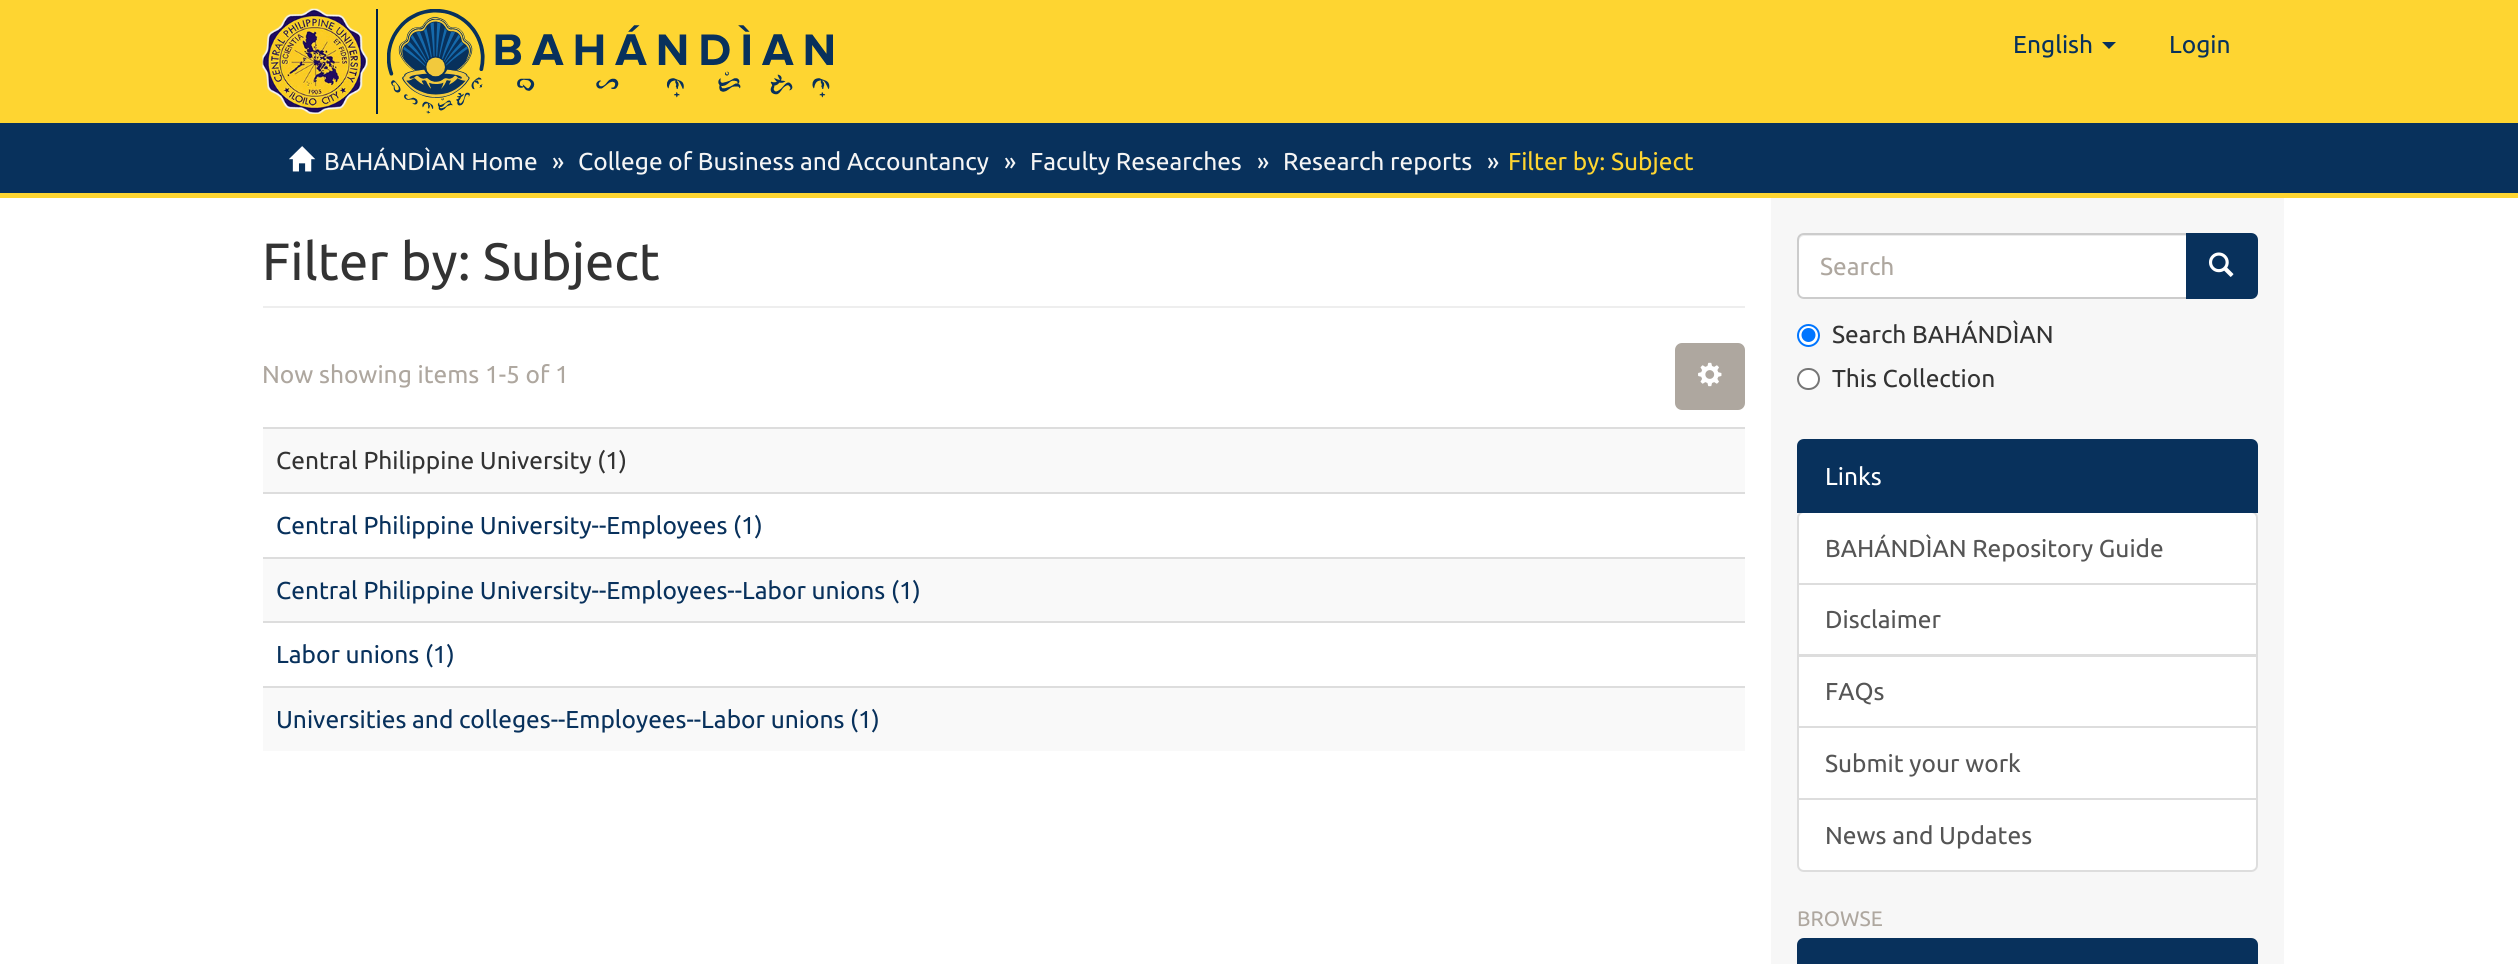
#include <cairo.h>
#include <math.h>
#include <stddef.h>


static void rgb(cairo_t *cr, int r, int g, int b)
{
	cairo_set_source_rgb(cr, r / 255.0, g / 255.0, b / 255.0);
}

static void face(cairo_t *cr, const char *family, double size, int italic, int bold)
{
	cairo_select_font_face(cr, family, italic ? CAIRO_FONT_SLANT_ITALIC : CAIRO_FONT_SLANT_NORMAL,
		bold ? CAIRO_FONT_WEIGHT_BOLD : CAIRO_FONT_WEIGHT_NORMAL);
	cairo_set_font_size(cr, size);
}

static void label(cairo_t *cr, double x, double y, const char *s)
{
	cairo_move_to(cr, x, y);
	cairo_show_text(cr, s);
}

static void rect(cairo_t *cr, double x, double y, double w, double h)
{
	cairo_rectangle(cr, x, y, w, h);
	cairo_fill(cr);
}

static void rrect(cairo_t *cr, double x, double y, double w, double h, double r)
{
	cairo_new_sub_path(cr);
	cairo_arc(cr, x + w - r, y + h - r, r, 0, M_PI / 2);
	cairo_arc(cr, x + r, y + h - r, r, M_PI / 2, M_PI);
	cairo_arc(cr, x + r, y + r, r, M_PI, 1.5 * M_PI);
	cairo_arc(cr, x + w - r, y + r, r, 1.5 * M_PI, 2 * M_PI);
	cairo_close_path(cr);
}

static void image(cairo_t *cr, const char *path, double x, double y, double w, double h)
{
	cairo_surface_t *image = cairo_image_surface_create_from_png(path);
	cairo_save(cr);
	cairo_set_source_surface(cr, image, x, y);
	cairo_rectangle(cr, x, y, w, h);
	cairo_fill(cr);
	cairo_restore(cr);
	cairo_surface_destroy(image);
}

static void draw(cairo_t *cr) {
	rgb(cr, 255, 255, 255);
	cairo_paint(cr);
	rgb(cr, 254, 213, 49);
	rect(cr, 0, 0, 2518, 123);
	image(cr, "image0.png", 262, 8, 106, 106);
	rgb(cr, 0, 33, 71);
	rect(cr, 376, 9, 2, 105);
	image(cr, "image1.png", 387, 9, 446, 105);
	face(cr, "Ubuntu", 24.5, 0, 0);
	rgb(cr, 8, 49, 92);
	label(cr, 2013, 53, "English");
	cairo_new_path(cr);
	cairo_move_to(cr, 2102, 42);
	cairo_line_to(cr, 2116, 42);
	cairo_line_to(cr, 2109, 49);
	cairo_close_path(cr);
	cairo_fill(cr);
	label(cr, 2169, 53, "Login");
	rect(cr, 0, 123, 2518, 70);
	rgb(cr, 254, 213, 49);
	rect(cr, 0, 193, 2518, 5);
	image(cr, "image2.png", 289, 146, 27, 26);
	rgb(cr, 245, 245, 245);
	label(cr, 324, 170, "BAHÁNDÌAN Home");
	label(cr, 552, 170, "»");
	label(cr, 578, 170, "College of Business and Accountancy");
	label(cr, 1004, 170, "»");
	label(cr, 1030, 170, "Faculty Researches");
	label(cr, 1257, 170, "»");
	label(cr, 1283, 170, "Research reports");
	label(cr, 1487, 170, "»");
	rgb(cr, 254, 213, 49);
	label(cr, 1508, 170, "Filter by: Subject");
	rgb(cr, 247, 247, 247);
	rect(cr, 1771, 198, 513, 766);
	rgb(cr, 238, 238, 238);
	rect(cr, 263, 306, 1482, 2);
	face(cr, "Ubuntu", 52.5, 0, 0);
	rgb(cr, 51, 51, 51);
	label(cr, 262, 280, "Filter by: Subject");
	face(cr, "Ubuntu", 24.5, 0, 0);
	rgb(cr, 174, 167, 159);
	label(cr, 262, 383, "Now showing items 1-5 of 1");
	rrect(cr, 1676, 344, 68, 65, 6);
	cairo_fill_preserve(cr);
	cairo_stroke(cr);
	image(cr, "image3.png", 1698, 362, 24, 25);
	rgb(cr, 249, 249, 249);
	rect(cr, 263, 429, 1482, 63);
	rgb(cr, 221, 221, 221);
	rect(cr, 263, 427, 1482, 2);
	rgb(cr, 51, 51, 51);
	label(cr, 276, 469, "Central Philippine University (1)");
	rgb(cr, 221, 221, 221);
	rect(cr, 263, 492, 1482, 2);
	rgb(cr, 8, 49, 92);
	label(cr, 276, 534, "Central Philippine University--Employees (1)");
	rgb(cr, 249, 249, 249);
	rect(cr, 263, 559, 1482, 62);
	rgb(cr, 221, 221, 221);
	rect(cr, 263, 557, 1482, 2);
	rgb(cr, 8, 49, 92);
	label(cr, 276, 599, "Central Philippine University--Employees--Labor unions (1)");
	rgb(cr, 221, 221, 221);
	rect(cr, 263, 621, 1482, 2);
	rgb(cr, 8, 49, 92);
	label(cr, 276, 663, "Labor unions (1)");
	rgb(cr, 249, 249, 249);
	rect(cr, 263, 688, 1482, 63);
	rgb(cr, 221, 221, 221);
	rect(cr, 263, 686, 1482, 2);
	rgb(cr, 8, 49, 92);
	label(cr, 276, 728, "Universities and colleges--Employees--Labor unions (1)");
	rgb(cr, 255, 255, 255);
	cairo_new_path(cr);
	cairo_move_to(cr, 1804, 233);
	cairo_line_to(cr, 2188, 233);
	cairo_line_to(cr, 2188, 299);
	cairo_line_to(cr, 1804, 299);
	cairo_curve_to(cr, 1800, 299, 1797, 296, 1797, 292);
	cairo_line_to(cr, 1797, 240);
	cairo_curve_to(cr, 1797, 236, 1800, 233, 1804, 233);
	cairo_close_path(cr);
	cairo_fill(cr);
	rgb(cr, 236, 236, 236);
	cairo_new_path(cr);
	cairo_move_to(cr, 1804, 236);
	cairo_line_to(cr, 2186, 236);
	cairo_line_to(cr, 2186, 235);
	cairo_line_to(cr, 1804, 235);
	cairo_curve_to(cr, 1801, 235, 1799, 237, 1799, 240);
	cairo_line_to(cr, 1799, 242);
	cairo_curve_to(cr, 1799, 239, 1801, 236, 1804, 236);
	cairo_close_path(cr);
	cairo_fill(cr);
	cairo_new_path(cr);
	cairo_move_to(cr, 1804, 234);
	cairo_line_to(cr, 2187, 234);
	cairo_line_to(cr, 2187, 298);
	cairo_line_to(cr, 1804, 298);
	cairo_curve_to(cr, 1800.5, 298, 1798, 295.5, 1798, 292);
	cairo_line_to(cr, 1798, 240);
	cairo_curve_to(cr, 1798, 236.5, 1800.5, 234, 1804, 234);
	cairo_close_path(cr);
	rgb(cr, 204, 204, 204);
	cairo_stroke(cr);
	rgb(cr, 174, 167, 159);
	label(cr, 1820, 275, "Search");
	rgb(cr, 8, 49, 92);
	cairo_new_path(cr);
	cairo_move_to(cr, 2187, 234);
	cairo_line_to(cr, 2251, 234);
	cairo_curve_to(cr, 2254.5, 234, 2257, 236.5, 2257, 240);
	cairo_line_to(cr, 2257, 292);
	cairo_curve_to(cr, 2257, 295.5, 2254.5, 298, 2251, 298);
	cairo_line_to(cr, 2187, 298);
	cairo_close_path(cr);
	cairo_fill_preserve(cr);
	cairo_stroke(cr);
	image(cr, "image4.png", 2209, 252, 25, 25);
	rgb(cr, 255, 255, 255);
	cairo_arc(cr, 1808.5, 335.5, 10.5, 0, 2 * M_PI);
	cairo_fill_preserve(cr);
	rgb(cr, 0, 117, 255);
	cairo_stroke(cr);
	cairo_arc(cr, 1808.5, 335, 7, 0, 2 * M_PI);
	cairo_fill(cr);
	rgb(cr, 51, 51, 51);
	label(cr, 1832, 343, "Search BAHÁNDÌAN");
	rgb(cr, 255, 255, 255);
	rrect(cr, 1798, 369, 21, 20, 10);
	cairo_fill_preserve(cr);
	rgb(cr, 118, 118, 118);
	cairo_stroke(cr);
	rgb(cr, 51, 51, 51);
	label(cr, 1832, 387, "This Collection");
	rgb(cr, 255, 255, 255);
	cairo_new_path(cr);
	cairo_move_to(cr, 1804, 512);
	cairo_line_to(cr, 2251, 512);
	cairo_curve_to(cr, 2254.5, 512, 2257, 514.5, 2257, 518);
	cairo_line_to(cr, 2257, 584);
	cairo_line_to(cr, 1798, 584);
	cairo_line_to(cr, 1798, 518);
	cairo_curve_to(cr, 1798, 514.5, 1800.5, 512, 1804, 512);
	cairo_close_path(cr);
	cairo_fill_preserve(cr);
	rgb(cr, 221, 221, 221);
	cairo_stroke(cr);
	rgb(cr, 8, 49, 92);
	cairo_new_path(cr);
	cairo_move_to(cr, 1804, 440);
	cairo_line_to(cr, 2251, 440);
	cairo_curve_to(cr, 2254.5, 440, 2257, 442.5, 2257, 446);
	cairo_line_to(cr, 2257, 512);
	cairo_line_to(cr, 1798, 512);
	cairo_line_to(cr, 1798, 446);
	cairo_curve_to(cr, 1798, 442.5, 1800.5, 440, 1804, 440);
	cairo_close_path(cr);
	cairo_fill_preserve(cr);
	cairo_stroke(cr);
	rgb(cr, 255, 255, 255);
	label(cr, 1825, 485, "Links");
	rgb(cr, 85, 85, 85);
	label(cr, 1825, 557, "BAHÁNDÌAN Repository Guide");
	rgb(cr, 255, 255, 255);
	cairo_rectangle(cr, 1798, 584, 459, 71);
	cairo_fill_preserve(cr);
	rgb(cr, 221, 221, 221);
	cairo_stroke(cr);
	rgb(cr, 85, 85, 85);
	label(cr, 1825, 628, "Disclaimer");
	rgb(cr, 255, 255, 255);
	cairo_rectangle(cr, 1798, 656, 459, 71);
	cairo_fill_preserve(cr);
	rgb(cr, 221, 221, 221);
	cairo_stroke(cr);
	rgb(cr, 85, 85, 85);
	label(cr, 1825, 700, "FAQs");
	rgb(cr, 255, 255, 255);
	cairo_rectangle(cr, 1798, 727, 459, 72);
	cairo_fill_preserve(cr);
	rgb(cr, 221, 221, 221);
	cairo_stroke(cr);
	rgb(cr, 85, 85, 85);
	label(cr, 1825, 772, "Submit your work");
	rgb(cr, 255, 255, 255);
	cairo_new_path(cr);
	cairo_move_to(cr, 1798, 799);
	cairo_line_to(cr, 2257, 799);
	cairo_line_to(cr, 2257, 865);
	cairo_curve_to(cr, 2257, 868.5, 2254.5, 871, 2251, 871);
	cairo_line_to(cr, 1804, 871);
	cairo_curve_to(cr, 1800.5, 871, 1798, 868.5, 1798, 865);
	cairo_close_path(cr);
	cairo_fill_preserve(cr);
	rgb(cr, 221, 221, 221);
	cairo_stroke(cr);
	rgb(cr, 85, 85, 85);
	label(cr, 1825, 844, "News and Updates");
	face(cr, "Ubuntu", 21, 0, 0);
	rgb(cr, 174, 167, 159);
	label(cr, 1797, 926, "BROWSE");
	rgb(cr, 8, 49, 92);
	cairo_new_path(cr);
	cairo_move_to(cr, 1804, 939);
	cairo_line_to(cr, 2251, 939);
	cairo_curve_to(cr, 2254.5, 939, 2257, 941.5, 2257, 945);
	cairo_line_to(cr, 2257, 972);
	cairo_line_to(cr, 1798, 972);
	cairo_line_to(cr, 1798, 945);
	cairo_curve_to(cr, 1798, 941.5, 1800.5, 939, 1804, 939);
	cairo_close_path(cr);
	cairo_fill_preserve(cr);
	cairo_stroke(cr);
}

int main(void) {
	cairo_surface_t *surface = cairo_image_surface_create(CAIRO_FORMAT_RGB24, 2518, 964);
	cairo_t *cr = cairo_create(surface);
	cairo_font_options_t *options = cairo_font_options_create();
	cairo_font_options_set_hint_metrics(options, CAIRO_HINT_METRICS_OFF);
	cairo_font_options_set_hint_style(options, CAIRO_HINT_STYLE_NONE);
	cairo_set_font_options(cr, options);
	cairo_set_miter_limit(cr, 4);
	draw(cr);
	cairo_surface_write_to_png(surface, "render.png");
	cairo_font_options_destroy(options);
	cairo_destroy(cr);
	cairo_surface_destroy(surface);
	return 0;
}
